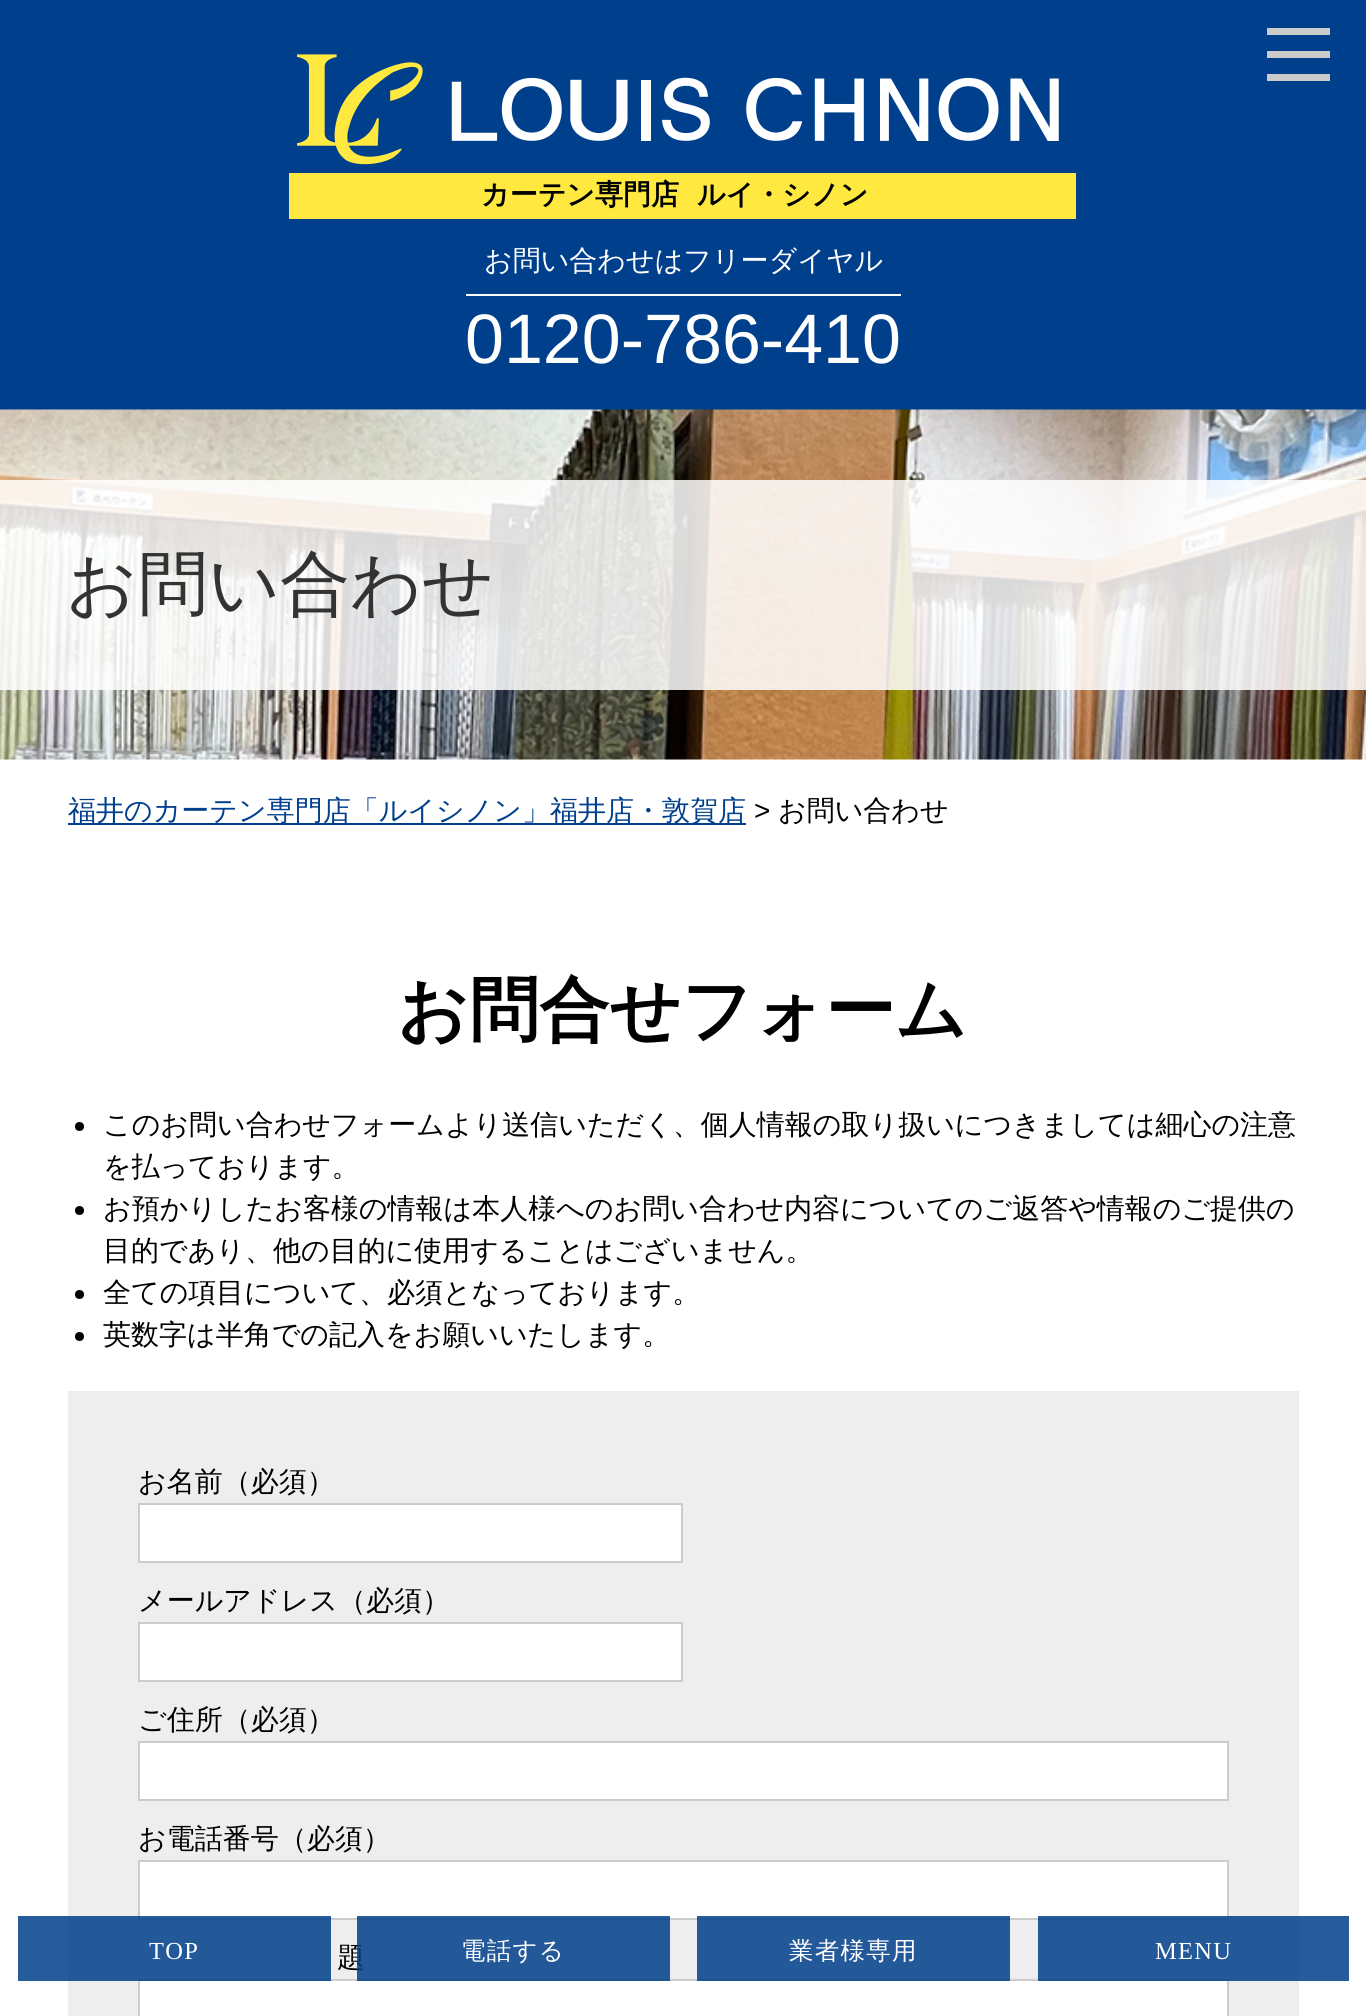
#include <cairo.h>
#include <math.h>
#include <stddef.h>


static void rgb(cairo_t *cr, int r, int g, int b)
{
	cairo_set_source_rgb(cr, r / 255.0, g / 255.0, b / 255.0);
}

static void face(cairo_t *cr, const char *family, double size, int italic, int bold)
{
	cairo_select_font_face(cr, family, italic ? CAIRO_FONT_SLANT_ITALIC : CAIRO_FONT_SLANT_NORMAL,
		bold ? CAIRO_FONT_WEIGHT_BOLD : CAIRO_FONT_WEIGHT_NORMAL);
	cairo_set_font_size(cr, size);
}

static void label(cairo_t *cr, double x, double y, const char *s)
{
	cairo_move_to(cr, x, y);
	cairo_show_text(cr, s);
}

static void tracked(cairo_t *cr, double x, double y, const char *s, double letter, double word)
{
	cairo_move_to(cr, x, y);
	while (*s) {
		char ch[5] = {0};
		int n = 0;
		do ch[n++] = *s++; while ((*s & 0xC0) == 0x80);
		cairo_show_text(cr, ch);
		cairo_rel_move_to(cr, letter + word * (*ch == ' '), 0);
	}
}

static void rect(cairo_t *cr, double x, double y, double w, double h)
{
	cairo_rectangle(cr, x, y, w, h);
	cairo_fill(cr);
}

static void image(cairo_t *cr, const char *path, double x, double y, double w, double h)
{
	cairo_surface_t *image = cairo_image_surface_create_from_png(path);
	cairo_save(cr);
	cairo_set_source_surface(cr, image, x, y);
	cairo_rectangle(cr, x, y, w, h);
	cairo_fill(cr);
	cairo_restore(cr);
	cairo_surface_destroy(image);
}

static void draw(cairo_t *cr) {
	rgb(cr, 255, 255, 255);
	cairo_paint(cr);
	rgb(cr, 0, 63, 139);
	rect(cr, 0, 0, 1366, 410);
	rgb(cr, 204, 204, 204);
	rect(cr, 1267, 51, 63, 7);
	rect(cr, 1267, 28, 63, 7);
	rect(cr, 1267, 74, 63, 7);
	image(cr, "image0.png", 297, 54, 762, 111);
	rgb(cr, 255, 233, 65);
	rect(cr, 289, 173, 787, 46);
	face(cr, "WenQuanYi Zen Hei", 28, 0, 1);
	rgb(cr, 0, 0, 0);
	label(cr, 481, 204, "カーテン専門店");
	label(cr, 697, 204, "ルイ・シノン");
	rgb(cr, 255, 255, 255);
	rect(cr, 466, 294, 435, 2);
	face(cr, "WenQuanYi Zen Hei Medium", 28, 0, 0);
	label(cr, 484, 270, "お問い合わせはフリーダイヤル");
	face(cr, "Liberation Sans", 70, 0, 0);
	label(cr, 465, 363, "0120-786-410");
	image(cr, "image1.png", 0, 409, 1366, 351);
	cairo_set_source_rgba(cr, 1, 1, 1, 0.85);
	rect(cr, 0, 480, 1366, 210);
	face(cr, "WenQuanYi Zen Hei Medium", 70.25, 0, 0);
	rgb(cr, 51, 51, 51);
	label(cr, 66, 608, "お問い合わせ");
	rgb(cr, 0, 63, 139);
	rect(cr, 68, 823, 678, 2);
	face(cr, "WenQuanYi Zen Hei Medium", 28, 0, 0);
	label(cr, 68, 820, "福井のカーテン専門店「ルイシノン」福井店・敦賀店");
	face(cr, "Liberation Sans", 28, 0, 0);
	rgb(cr, 0, 0, 0);
	label(cr, 754, 820, ">");
	face(cr, "WenQuanYi Zen Hei Medium", 28, 0, 0);
	label(cr, 778, 820, "お問い合わせ");
	face(cr, "WenQuanYi Zen Hei", 70.25, 0, 1);
	label(cr, 397, 1034, "お問合せフォーム");
	cairo_new_path(cr);
	cairo_arc(cr, 79.5, 1126.5, 4.5, 0, 2 * M_PI);
	cairo_fill(cr);
	face(cr, "WenQuanYi Zen Hei Medium", 28, 0, 0);
	label(cr, 103, 1134, "このお問い合わせフォームより送信いただく、個人情報の取り扱いにつきましては細心の注意");
	label(cr, 103, 1176, "を払っております。");
	cairo_new_path(cr);
	cairo_arc(cr, 79.5, 1210.5, 4.5, 0, 2 * M_PI);
	cairo_fill(cr);
	label(cr, 103, 1218, "お預かりしたお客様の情報は本人様へのお問い合わせ内容についてのご返答や情報のご提供の");
	label(cr, 103, 1260, "目的であり、他の目的に使用することはございません。");
	cairo_new_path(cr);
	cairo_arc(cr, 79.5, 1294.5, 4.5, 0, 2 * M_PI);
	cairo_fill(cr);
	label(cr, 103, 1302, "全ての項目について、必須となっております。");
	cairo_new_path(cr);
	cairo_arc(cr, 79.5, 1336.5, 4.5, 0, 2 * M_PI);
	cairo_fill(cr);
	label(cr, 103, 1344, "英数字は半角での記入をお願いいたします。");
	rgb(cr, 238, 238, 238);
	rect(cr, 68, 1391, 1231, 625);
	rgb(cr, 0, 0, 0);
	label(cr, 138, 1491, "お名前（必須）");
	rgb(cr, 255, 255, 255);
	cairo_rectangle(cr, 139, 1504, 543, 58);
	cairo_fill_preserve(cr);
	rgb(cr, 204, 204, 204);
	cairo_stroke(cr);
	rgb(cr, 0, 0, 0);
	label(cr, 138, 1610, "メールアドレス（必須）");
	rgb(cr, 255, 255, 255);
	cairo_rectangle(cr, 139, 1623, 543, 58);
	cairo_fill_preserve(cr);
	rgb(cr, 204, 204, 204);
	cairo_stroke(cr);
	rgb(cr, 0, 0, 0);
	label(cr, 138, 1729, "ご住所（必須）");
	rgb(cr, 255, 255, 255);
	cairo_rectangle(cr, 139, 1742, 1089, 58);
	cairo_fill_preserve(cr);
	rgb(cr, 204, 204, 204);
	cairo_stroke(cr);
	rgb(cr, 0, 0, 0);
	label(cr, 138, 1848, "お電話番号（必須）");
	rgb(cr, 255, 255, 255);
	cairo_rectangle(cr, 139, 1861, 1089, 58);
	cairo_fill_preserve(cr);
	rgb(cr, 204, 204, 204);
	cairo_stroke(cr);
	rgb(cr, 0, 0, 0);
	label(cr, 337, 1967, "題");
	rgb(cr, 255, 255, 255);
	cairo_rectangle(cr, 139, 1980, 1089, 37);
	cairo_fill_preserve(cr);
	rgb(cr, 204, 204, 204);
	cairo_stroke(cr);
	cairo_set_source_rgba(cr, 0, 0.247, 0.545, 0.85);
	rect(cr, 18, 1916, 313, 65);
	face(cr, "Liberation Serif", 24.5, 0, 0);
	rgb(cr, 255, 255, 255);
	tracked(cr, 149, 1959, "TOP", 1.25, 0);
	cairo_set_source_rgba(cr, 0, 0.247, 0.545, 0.85);
	rect(cr, 357, 1916, 313, 65);
	face(cr, "WenQuanYi Zen Hei Medium", 24.5, 0, 0);
	rgb(cr, 255, 255, 255);
	tracked(cr, 461, 1959, "電話する", 1.25, 0);
	cairo_set_source_rgba(cr, 0, 0.247, 0.545, 0.85);
	rect(cr, 697, 1916, 313, 65);
	rgb(cr, 255, 255, 255);
	tracked(cr, 789, 1959, "業者様専用", 1.25, 0);
	cairo_set_source_rgba(cr, 0, 0.247, 0.545, 0.85);
	rect(cr, 1038, 1916, 311, 65);
	face(cr, "Liberation Serif", 24.5, 0, 0);
	rgb(cr, 255, 255, 255);
	tracked(cr, 1155, 1959, "MENU", 1.25, 0);
}

int main(void) {
	cairo_surface_t *surface = cairo_image_surface_create(CAIRO_FORMAT_RGB24, 1366, 2016);
	cairo_t *cr = cairo_create(surface);
	cairo_font_options_t *options = cairo_font_options_create();
	cairo_font_options_set_hint_metrics(options, CAIRO_HINT_METRICS_OFF);
	cairo_font_options_set_hint_style(options, CAIRO_HINT_STYLE_NONE);
	cairo_set_font_options(cr, options);
	cairo_set_miter_limit(cr, 4);
	draw(cr);
	cairo_surface_write_to_png(surface, "render.png");
	cairo_font_options_destroy(options);
	cairo_destroy(cr);
	cairo_surface_destroy(surface);
	return 0;
}
